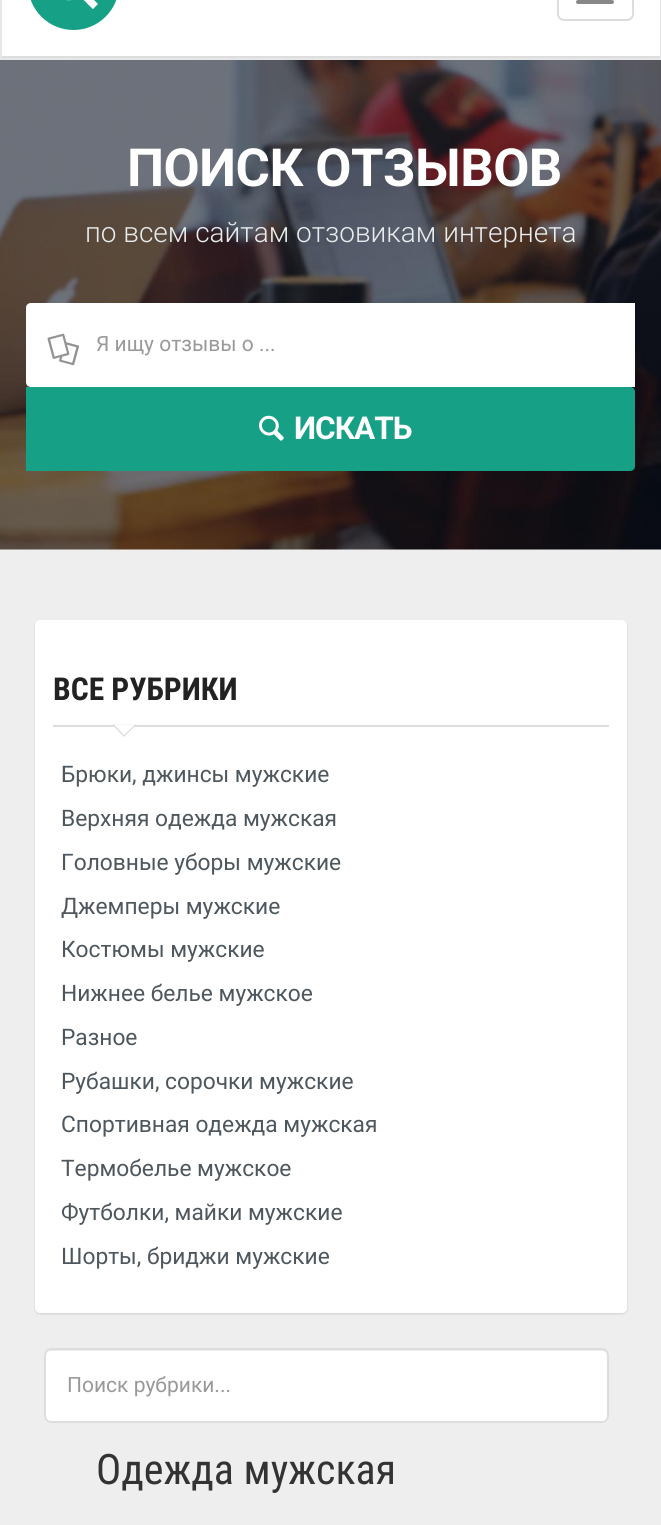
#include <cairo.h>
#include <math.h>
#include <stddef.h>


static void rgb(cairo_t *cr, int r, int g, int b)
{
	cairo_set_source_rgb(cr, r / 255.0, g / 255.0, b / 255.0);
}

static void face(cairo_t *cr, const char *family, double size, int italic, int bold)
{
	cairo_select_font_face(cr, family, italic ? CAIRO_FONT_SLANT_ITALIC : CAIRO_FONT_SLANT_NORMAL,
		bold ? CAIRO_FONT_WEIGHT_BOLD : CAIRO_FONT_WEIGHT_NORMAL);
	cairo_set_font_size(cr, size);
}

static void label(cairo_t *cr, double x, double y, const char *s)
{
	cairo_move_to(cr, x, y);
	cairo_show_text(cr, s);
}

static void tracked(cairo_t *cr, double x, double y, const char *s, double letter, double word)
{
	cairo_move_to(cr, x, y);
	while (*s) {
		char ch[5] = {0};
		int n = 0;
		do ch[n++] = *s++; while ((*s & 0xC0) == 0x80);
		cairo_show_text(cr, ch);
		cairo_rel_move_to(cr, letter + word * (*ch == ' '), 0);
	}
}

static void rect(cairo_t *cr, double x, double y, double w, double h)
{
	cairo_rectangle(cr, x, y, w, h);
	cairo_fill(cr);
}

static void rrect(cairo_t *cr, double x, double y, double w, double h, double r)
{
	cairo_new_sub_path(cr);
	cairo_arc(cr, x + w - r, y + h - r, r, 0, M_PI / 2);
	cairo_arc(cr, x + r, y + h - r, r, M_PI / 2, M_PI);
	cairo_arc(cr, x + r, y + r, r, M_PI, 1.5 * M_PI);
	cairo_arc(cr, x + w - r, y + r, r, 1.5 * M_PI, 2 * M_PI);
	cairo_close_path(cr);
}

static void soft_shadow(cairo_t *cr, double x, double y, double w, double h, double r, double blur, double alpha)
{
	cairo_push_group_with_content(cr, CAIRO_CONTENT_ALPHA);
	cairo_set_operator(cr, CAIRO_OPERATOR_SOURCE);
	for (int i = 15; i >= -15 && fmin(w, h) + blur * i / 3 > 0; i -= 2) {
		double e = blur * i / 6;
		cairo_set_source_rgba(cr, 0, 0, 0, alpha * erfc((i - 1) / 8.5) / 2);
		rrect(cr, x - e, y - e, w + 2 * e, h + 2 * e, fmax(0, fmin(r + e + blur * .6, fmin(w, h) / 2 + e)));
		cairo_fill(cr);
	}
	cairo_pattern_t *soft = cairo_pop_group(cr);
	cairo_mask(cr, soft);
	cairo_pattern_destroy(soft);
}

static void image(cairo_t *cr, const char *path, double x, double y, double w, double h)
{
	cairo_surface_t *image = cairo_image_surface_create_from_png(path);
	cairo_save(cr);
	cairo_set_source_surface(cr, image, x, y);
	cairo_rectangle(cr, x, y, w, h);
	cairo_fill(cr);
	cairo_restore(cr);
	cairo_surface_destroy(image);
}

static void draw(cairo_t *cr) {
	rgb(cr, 238, 238, 238);
	cairo_paint(cr);
	rgb(cr, 255, 255, 255);
	rect(cr, 2, 0, 658, 56);
	cairo_rectangle(cr, 1, -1, 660, 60);
	rgb(cr, 231, 231, 231);
	cairo_stroke(cr);
	rgb(cr, 221, 221, 221);
	rect(cr, 2, 56, 658, 2);
	rgb(cr, 22, 160, 133);
	rrect(cr, 28, -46, 91, 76, 45.5);
	cairo_fill(cr);
	image(cr, "image0.png", 66, 0, 32, 9);
	rrect(cr, 558, -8, 75, 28, 6);
	rgb(cr, 221, 221, 221);
	cairo_stroke(cr);
	rgb(cr, 136, 136, 136);
	rrect(cr, 576, 0, 38, 4, 2);
	cairo_fill(cr);
	image(cr, "image1.png", 0, 60, 661, 490);
	face(cr, "Roboto", 52.5, 0, 1);
	rgb(cr, 255, 255, 255);
	tracked(cr, 127, 186, "ПОИСК ОТЗЫВОВ", -0.5, 0);
	face(cr, "Roboto Light", 28, 0, 0);
	rgb(cr, 232, 236, 237);
	label(cr, 85, 242, "по всем сайтам отзовикам интернета");
	rgb(cr, 255, 255, 255);
	cairo_new_path(cr);
	cairo_move_to(cr, 31, 303);
	cairo_line_to(cr, 635, 303);
	cairo_line_to(cr, 635, 387);
	cairo_line_to(cr, 31, 387);
	cairo_curve_to(cr, 28, 387, 26, 385, 26, 382);
	cairo_line_to(cr, 26, 308);
	cairo_curve_to(cr, 26, 305, 28, 303, 31, 303);
	cairo_close_path(cr);
	cairo_fill(cr);
	image(cr, "image2.png", 47, 333, 32, 33);
	face(cr, "Roboto", 21, 0, 0);
	rgb(cr, 153, 153, 153);
	label(cr, 96, 351, "Я ищу отзывы о ...");
	rgb(cr, 22, 160, 133);
	cairo_new_path(cr);
	cairo_move_to(cr, 26, 387);
	cairo_line_to(cr, 630, 387);
	cairo_curve_to(cr, 633, 387, 635, 389, 635, 392);
	cairo_line_to(cr, 635, 466);
	cairo_curve_to(cr, 635, 469, 633, 471, 630, 471);
	cairo_line_to(cr, 26, 471);
	cairo_close_path(cr);
	cairo_fill(cr);
	image(cr, "image3.png", 259, 415, 25, 26);
	face(cr, "Roboto", 31.5, 0, 1);
	rgb(cr, 255, 255, 255);
	tracked(cr, 294, 439, "ИСКАТЬ", -1, 0);
	rgb(cr, 180, 180, 180);
	soft_shadow(cr, 35, 621, 592, 693, 5, 1, 0.5);
	rgb(cr, 255, 255, 255);
	rrect(cr, 35, 620, 592, 693, 5);
	cairo_fill(cr);
	rgb(cr, 221, 221, 221);
	rect(cr, 53, 725, 556, 2);
	face(cr, "Roboto Condensed", 31.5, 0, 1);
	rgb(cr, 34, 34, 34);
	label(cr, 53, 700, "ВСЕ РУБРИКИ");
	rgb(cr, 221, 221, 221);
	cairo_new_path(cr);
	cairo_move_to(cr, 112, 724.5);
	cairo_line_to(cr, 136.5, 724.5);
	cairo_line_to(cr, 124, 737);
	cairo_close_path(cr);
	cairo_fill(cr);
	rgb(cr, 255, 255, 255);
	cairo_new_path(cr);
	cairo_move_to(cr, 114, 724.5);
	cairo_line_to(cr, 135, 724.5);
	cairo_line_to(cr, 124, 735);
	cairo_close_path(cr);
	cairo_fill(cr);
	face(cr, "Roboto", 22.75, 0, 0);
	rgb(cr, 78, 87, 93);
	label(cr, 61, 782, "Брюки, джинсы мужские");
	label(cr, 61, 826, "Верхняя одежда мужская");
	label(cr, 61, 870, "Головные уборы мужские");
	label(cr, 61, 914, "Джемперы мужские");
	label(cr, 61, 957, "Костюмы мужские");
	label(cr, 61, 1001, "Нижнее белье мужское");
	label(cr, 61, 1045, "Разное");
	label(cr, 61, 1089, "Рубашки, сорочки мужские");
	label(cr, 61, 1132, "Спортивная одежда мужская");
	label(cr, 61, 1176, "Термобелье мужское");
	label(cr, 61, 1220, "Футболки, майки мужские");
	label(cr, 61, 1264, "Шорты, бриджи мужские");
	rgb(cr, 255, 255, 255);
	rrect(cr, 44, 1348, 565, 75, 7);
	cairo_fill(cr);
	rgb(cr, 236, 236, 236);
	cairo_new_path(cr);
	cairo_move_to(cr, 51, 1351);
	cairo_line_to(cr, 602, 1351);
	cairo_curve_to(cr, 605, 1351, 607, 1353, 607, 1356);
	cairo_line_to(cr, 607, 1354);
	cairo_curve_to(cr, 607, 1351, 605, 1349, 602, 1349);
	cairo_line_to(cr, 51, 1349);
	cairo_curve_to(cr, 48, 1349, 46, 1351, 46, 1354);
	cairo_line_to(cr, 46, 1356);
	cairo_curve_to(cr, 46, 1353, 48, 1351, 51, 1351);
	cairo_close_path(cr);
	cairo_fill(cr);
	rrect(cr, 45, 1349, 563, 73, 6);
	rgb(cr, 221, 221, 221);
	cairo_stroke(cr);
	face(cr, "Roboto", 21, 0, 0);
	rgb(cr, 153, 153, 153);
	label(cr, 67, 1392, "Поиск рубрики...");
	face(cr, "Roboto Condensed", 42, 0, 0);
	rgb(cr, 51, 51, 51);
	label(cr, 96, 1484, "Одежда мужская");
}

int main(void) {
	cairo_surface_t *surface = cairo_image_surface_create(CAIRO_FORMAT_RGB24, 661, 1525);
	cairo_t *cr = cairo_create(surface);
	cairo_font_options_t *options = cairo_font_options_create();
	cairo_font_options_set_hint_metrics(options, CAIRO_HINT_METRICS_OFF);
	cairo_font_options_set_hint_style(options, CAIRO_HINT_STYLE_NONE);
	cairo_set_font_options(cr, options);
	cairo_set_miter_limit(cr, 4);
	draw(cr);
	cairo_surface_write_to_png(surface, "render.png");
	cairo_font_options_destroy(options);
	cairo_destroy(cr);
	cairo_surface_destroy(surface);
	return 0;
}
